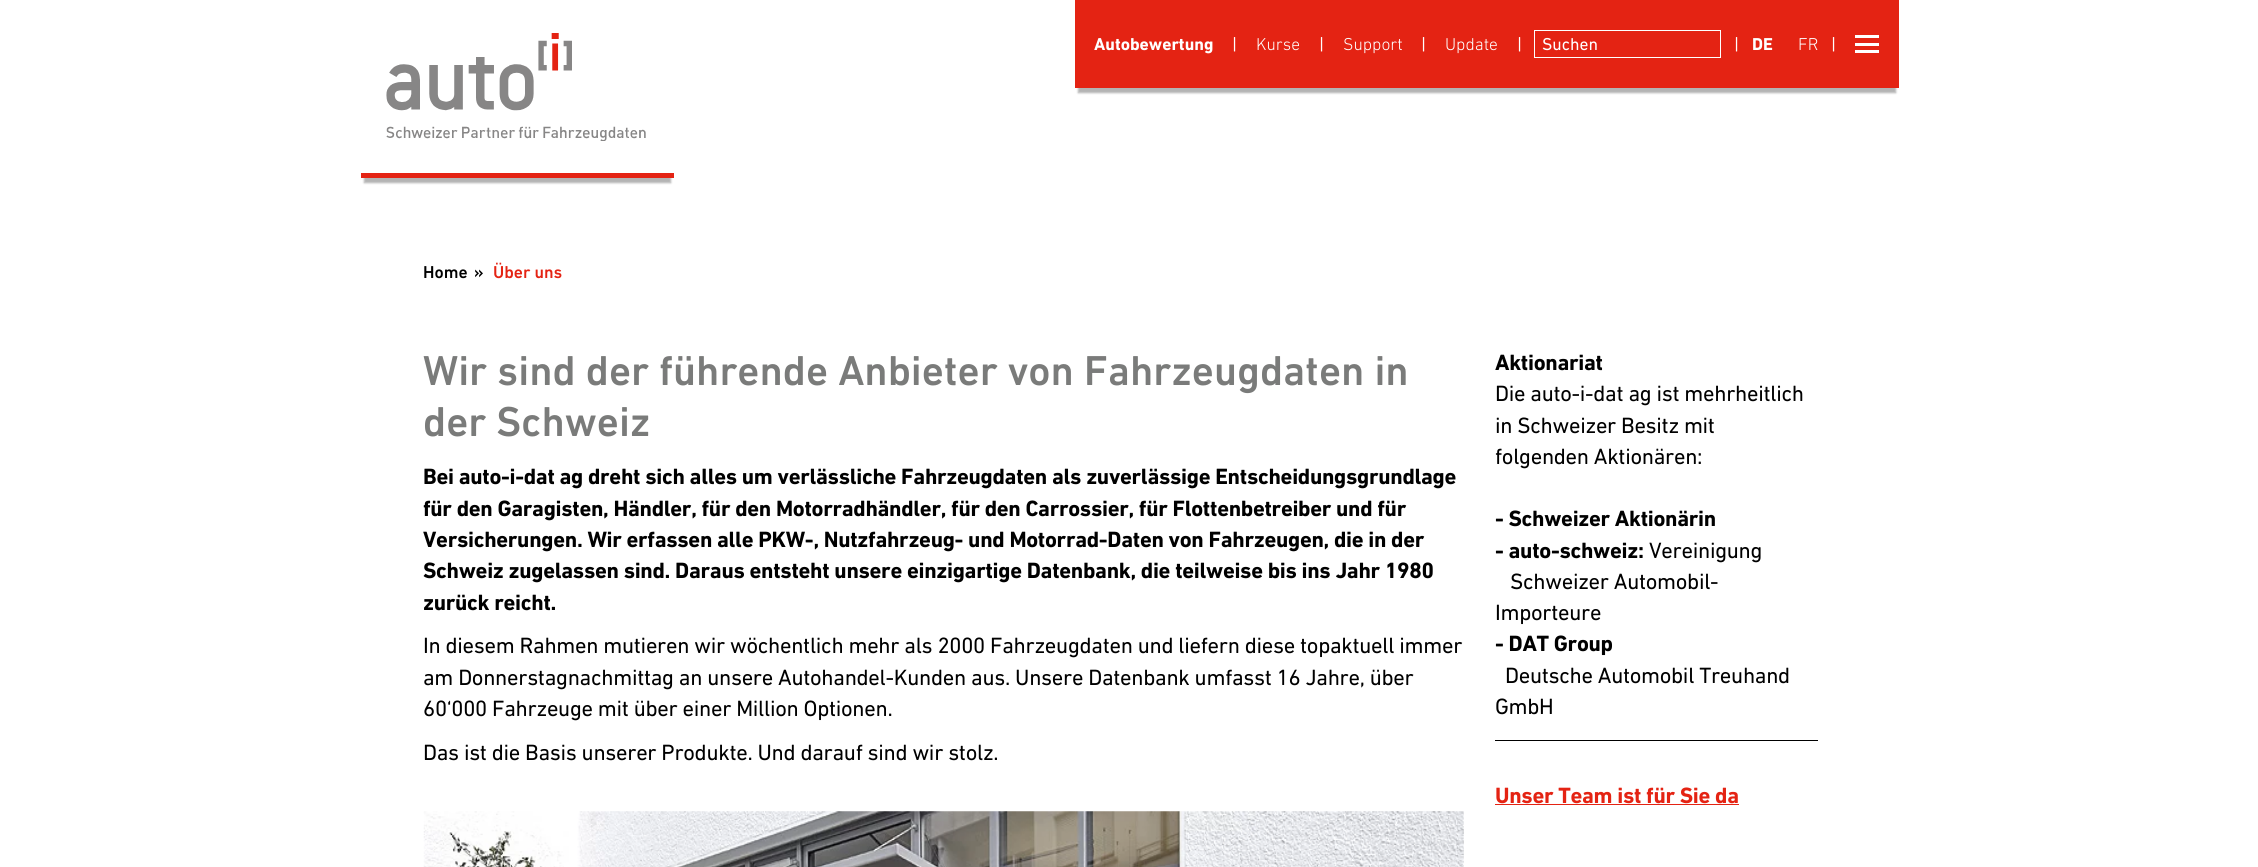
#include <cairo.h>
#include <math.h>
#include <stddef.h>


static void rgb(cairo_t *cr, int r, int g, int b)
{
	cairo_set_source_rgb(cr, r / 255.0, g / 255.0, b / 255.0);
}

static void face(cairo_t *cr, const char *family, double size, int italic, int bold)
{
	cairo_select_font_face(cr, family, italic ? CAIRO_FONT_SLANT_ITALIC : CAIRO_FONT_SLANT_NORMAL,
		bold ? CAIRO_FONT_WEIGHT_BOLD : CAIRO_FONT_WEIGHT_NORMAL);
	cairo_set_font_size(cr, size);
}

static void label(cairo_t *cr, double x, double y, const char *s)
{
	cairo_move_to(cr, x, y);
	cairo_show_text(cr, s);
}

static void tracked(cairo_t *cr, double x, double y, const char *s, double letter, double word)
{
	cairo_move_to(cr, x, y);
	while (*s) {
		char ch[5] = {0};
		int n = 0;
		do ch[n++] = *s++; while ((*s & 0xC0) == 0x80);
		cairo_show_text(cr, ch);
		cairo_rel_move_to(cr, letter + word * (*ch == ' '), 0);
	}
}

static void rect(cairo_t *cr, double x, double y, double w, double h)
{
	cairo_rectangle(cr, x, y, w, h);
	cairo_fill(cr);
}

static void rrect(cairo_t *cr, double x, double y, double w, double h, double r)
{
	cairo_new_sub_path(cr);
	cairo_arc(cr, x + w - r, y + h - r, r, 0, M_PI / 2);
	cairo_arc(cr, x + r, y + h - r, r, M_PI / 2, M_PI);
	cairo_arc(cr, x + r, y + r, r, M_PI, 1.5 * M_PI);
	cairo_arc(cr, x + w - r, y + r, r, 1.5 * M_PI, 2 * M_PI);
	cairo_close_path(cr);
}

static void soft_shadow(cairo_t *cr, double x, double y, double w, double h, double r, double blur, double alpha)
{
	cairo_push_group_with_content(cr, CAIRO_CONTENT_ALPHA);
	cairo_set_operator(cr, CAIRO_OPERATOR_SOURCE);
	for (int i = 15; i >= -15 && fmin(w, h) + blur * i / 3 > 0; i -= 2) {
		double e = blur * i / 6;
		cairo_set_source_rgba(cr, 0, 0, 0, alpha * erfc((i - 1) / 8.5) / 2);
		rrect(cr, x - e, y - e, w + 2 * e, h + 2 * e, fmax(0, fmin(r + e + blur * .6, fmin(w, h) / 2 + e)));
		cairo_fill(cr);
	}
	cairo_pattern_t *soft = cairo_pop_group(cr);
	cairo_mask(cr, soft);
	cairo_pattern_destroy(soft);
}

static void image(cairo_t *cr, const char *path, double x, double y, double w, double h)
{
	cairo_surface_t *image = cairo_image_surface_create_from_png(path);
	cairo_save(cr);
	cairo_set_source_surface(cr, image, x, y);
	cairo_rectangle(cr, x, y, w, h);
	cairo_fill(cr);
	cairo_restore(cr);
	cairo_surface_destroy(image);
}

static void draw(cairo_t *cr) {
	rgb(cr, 255, 255, 255);
	cairo_paint(cr);
	rgb(cr, 0, 0, 0);
	soft_shadow(cr, 364, 10, 307, 173, 0, 1, 0.3);
	rgb(cr, 255, 255, 255);
	rect(cr, 362, 8, 311, 165);
	rgb(cr, 228, 35, 19);
	rect(cr, 361, 173, 313, 5);
	image(cr, "image0.png", 386, 33, 260, 108);
	rgb(cr, 0, 0, 0);
	soft_shadow(cr, 1078, 10, 818, 83, 0, 1, 0.3);
	rgb(cr, 228, 35, 19);
	rect(cr, 1075, 0, 824, 88);
	face(cr, "DIN Next", 17.5, 0, 1);
	rgb(cr, 255, 255, 255);
	label(cr, 1094, 50, "Autobewertung");
	face(cr, "DIN Next", 17.5, 0, 0);
	label(cr, 1232, 50, "|");
	face(cr, "DIN Next Light", 17.5, 0, 0);
	label(cr, 1256, 50, "Kurse");
	face(cr, "DIN Next", 17.5, 0, 0);
	label(cr, 1319, 50, "|");
	face(cr, "DIN Next Light", 17.5, 0, 0);
	label(cr, 1343, 50, "Support");
	face(cr, "DIN Next", 17.5, 0, 0);
	label(cr, 1421, 50, "|");
	face(cr, "DIN Next Light", 17.5, 0, 0);
	label(cr, 1445, 50, "Update");
	face(cr, "DIN Next", 17.5, 0, 0);
	label(cr, 1517, 50, "|");
	cairo_rectangle(cr, 1534.5, 30.5, 186, 27);
	cairo_set_line_width(cr, 1);
	cairo_stroke(cr);
	label(cr, 1542, 50, "Suchen");
	label(cr, 1734, 50, "|");
	face(cr, "DIN Next", 17.5, 0, 1);
	label(cr, 1752, 50, "DE");
	face(cr, "DIN Next Light", 17.5, 0, 0);
	label(cr, 1798, 50, "FR");
	face(cr, "DIN Next", 17.5, 0, 0);
	label(cr, 1831, 50, "|");
	rect(cr, 1855, 50, 24, 3);
	rect(cr, 1855, 43, 24, 3);
	rect(cr, 1855, 35, 24, 3);
	face(cr, "DIN Next Medium", 17.5, 0, 0);
	rgb(cr, 0, 0, 0);
	label(cr, 423, 278, "Home");
	label(cr, 474, 278, "»");
	rgb(cr, 228, 35, 19);
	label(cr, 493, 278, "Über uns");
	face(cr, "DIN Next Medium", 42.5, 0, 0);
	rgb(cr, 122, 123, 122);
	label(cr, 423, 385, "Wir sind der führende Anbieter von Fahrzeugdaten in");
	label(cr, 423, 436, "der Schweiz");
	face(cr, "DIN Next", 22.5, 0, 1);
	rgb(cr, 0, 0, 0);
	tracked(cr, 423, 484, "Bei auto-i-dat ag dreht sich alles um verlässliche Fahrzeugdaten als zuverlässige Entscheidungsgrundlage", -0.31, 0);
	tracked(cr, 423, 516, "für den Garagisten, Händler, für den Motorradhändler, für den Carrossier, für Flottenbetreiber und für", -0.31, 0);
	tracked(cr, 423, 547, "Versicherungen. Wir erfassen alle PKW-, Nutzfahrzeug- und Motorrad-Daten von Fahrzeugen, die in der", -0.31, 0);
	tracked(cr, 423, 578, "Schweiz zugelassen sind. Daraus entsteht unsere einzigartige Datenbank, die teilweise bis ins Jahr 1980", -0.31, 0);
	tracked(cr, 423, 610, "zurück reicht.", -0.31, 0);
	face(cr, "DIN Next", 22.5, 0, 0);
	tracked(cr, 423, 653, "In diesem Rahmen mutieren wir wöchentlich mehr als 2000 Fahrzeugdaten und liefern diese topaktuell immer", -0.31, 0);
	tracked(cr, 423, 685, "am Donnerstagnachmittag an unsere Autohandel-Kunden aus. Unsere Datenbank umfasst 16 Jahre, über", -0.31, 0);
	tracked(cr, 423, 716, "60‘000 Fahrzeuge mit über einer Million Optionen.", -0.31, 0);
	tracked(cr, 423, 760, "Das ist die Basis unserer Produkte. Und darauf sind wir stolz.", -0.31, 0);
	image(cr, "image1.png", 423, 811, 1041, 56);
	face(cr, "DIN Next", 22.5, 0, 1);
	tracked(cr, 1495, 370, "Aktionariat", -0.31, 0);
	face(cr, "DIN Next", 22.5, 0, 0);
	tracked(cr, 1495, 401, "Die auto-i-dat ag ist mehrheitlich", -0.31, 0);
	tracked(cr, 1495, 433, "in Schweizer Besitz mit", -0.31, 0);
	tracked(cr, 1495, 464, "folgenden Aktionären:", -0.31, 0);
	face(cr, "DIN Next", 22.5, 0, 1);
	tracked(cr, 1495, 526, "- Schweizer Aktionärin", -0.31, 0);
	tracked(cr, 1495, 558, "- auto-schweiz:", -0.31, 0);
	face(cr, "DIN Next", 22.5, 0, 0);
	tracked(cr, 1649, 558, "Vereinigung", -0.31, 0);
	tracked(cr, 1510, 589, "Schweizer Automobil-", -0.31, 0);
	tracked(cr, 1495, 620, "Importeure", -0.31, 0);
	face(cr, "DIN Next", 22.5, 0, 1);
	tracked(cr, 1495, 651, "- DAT Group", -0.31, 0);
	face(cr, "DIN Next", 22.5, 0, 0);
	tracked(cr, 1505, 683, "Deutsche Automobil Treuhand", -0.31, 0);
	tracked(cr, 1495, 714, "GmbH", -0.31, 0);
	rect(cr, 1495, 740, 323, 1);
	face(cr, "DIN Next", 22.5, 0, 1);
	rgb(cr, 228, 35, 19);
	tracked(cr, 1495, 803, "Unser Team ist für Sie da", -0.31, 0);
	rect(cr, 1495, 804, 244, 1);
}

int main(void) {
	cairo_surface_t *surface = cairo_image_surface_create(CAIRO_FORMAT_RGB24, 2258, 867);
	cairo_t *cr = cairo_create(surface);
	cairo_font_options_t *options = cairo_font_options_create();
	cairo_font_options_set_hint_metrics(options, CAIRO_HINT_METRICS_OFF);
	cairo_font_options_set_hint_style(options, CAIRO_HINT_STYLE_NONE);
	cairo_set_font_options(cr, options);
	cairo_set_miter_limit(cr, 4);
	draw(cr);
	cairo_surface_write_to_png(surface, "render.png");
	cairo_font_options_destroy(options);
	cairo_destroy(cr);
	cairo_surface_destroy(surface);
	return 0;
}
